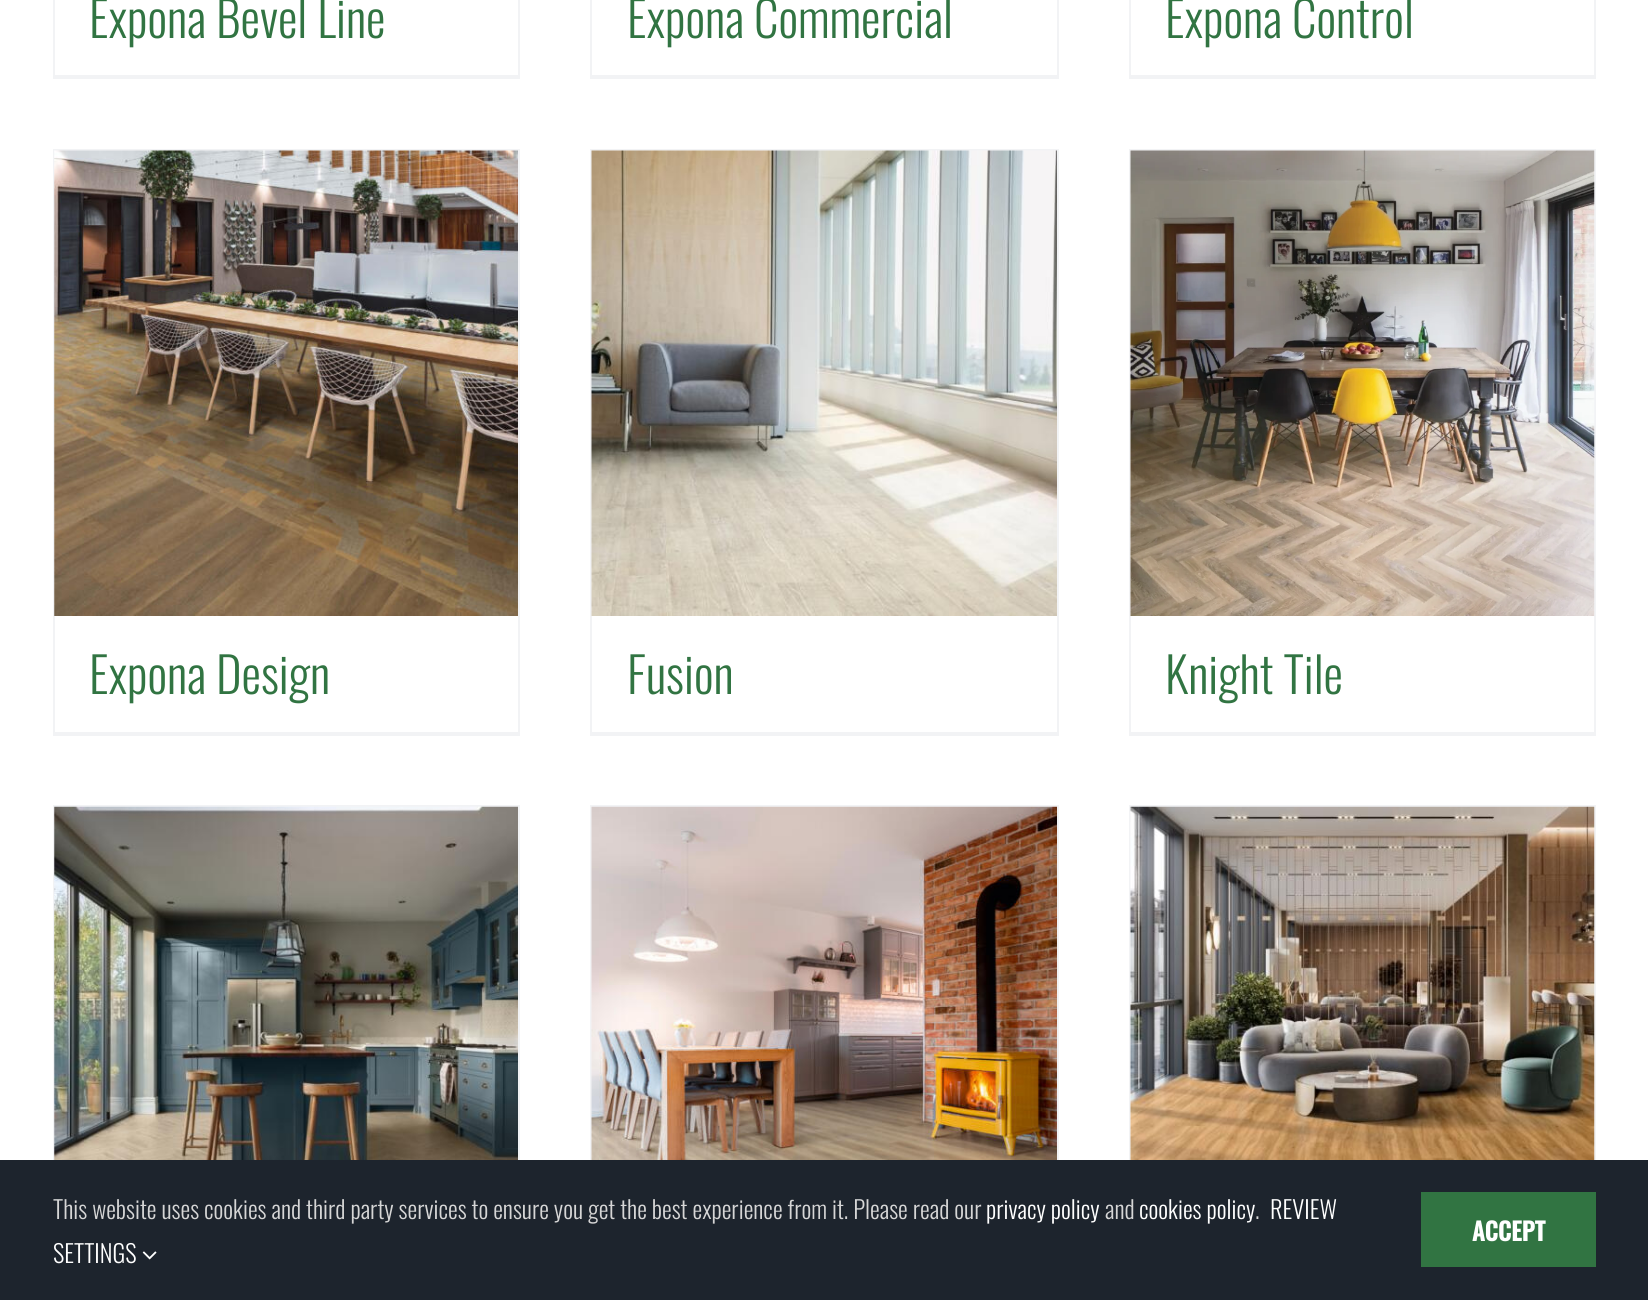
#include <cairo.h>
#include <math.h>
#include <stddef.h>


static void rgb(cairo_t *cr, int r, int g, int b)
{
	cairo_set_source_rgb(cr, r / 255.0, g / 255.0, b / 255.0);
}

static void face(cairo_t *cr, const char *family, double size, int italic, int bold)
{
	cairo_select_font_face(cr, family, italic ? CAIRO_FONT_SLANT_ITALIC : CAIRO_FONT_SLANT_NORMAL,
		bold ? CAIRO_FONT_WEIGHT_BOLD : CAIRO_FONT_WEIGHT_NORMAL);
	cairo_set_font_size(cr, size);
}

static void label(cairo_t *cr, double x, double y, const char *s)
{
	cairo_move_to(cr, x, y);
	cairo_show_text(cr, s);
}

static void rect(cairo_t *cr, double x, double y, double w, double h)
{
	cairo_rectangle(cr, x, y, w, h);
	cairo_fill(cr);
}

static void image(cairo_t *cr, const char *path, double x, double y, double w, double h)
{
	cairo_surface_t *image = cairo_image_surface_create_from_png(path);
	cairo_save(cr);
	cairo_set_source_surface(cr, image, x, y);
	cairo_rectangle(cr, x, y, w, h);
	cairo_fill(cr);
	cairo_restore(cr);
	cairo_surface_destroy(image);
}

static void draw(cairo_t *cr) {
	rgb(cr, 255, 255, 255);
	cairo_paint(cr);
	rgb(cr, 242, 243, 245);
	rect(cr, 518, 0, 2, 79);
	rect(cr, 53, 75, 467, 4);
	rect(cr, 53, 0, 2, 79);
	face(cr, "Oswald Light", 49, 0, 0);
	rgb(cr, 49, 116, 66);
	label(cr, 89, 38, "Expona Bevel Line");
	rgb(cr, 242, 243, 245);
	rect(cr, 1057, 0, 2, 79);
	rect(cr, 590, 75, 469, 4);
	rect(cr, 590, 0, 2, 79);
	rgb(cr, 49, 116, 66);
	label(cr, 627, 38, "Expona Commercial");
	rgb(cr, 242, 243, 245);
	rect(cr, 1594, 0, 2, 79);
	rect(cr, 1129, 75, 467, 4);
	rect(cr, 1129, 0, 2, 79);
	rgb(cr, 49, 116, 66);
	label(cr, 1165, 38, "Expona Control");
	rgb(cr, 242, 243, 245);
	rect(cr, 53, 149, 467, 2);
	rect(cr, 518, 149, 2, 586);
	rect(cr, 53, 732, 467, 4);
	rect(cr, 53, 149, 2, 586);
	image(cr, "image0.png", 54, 150, 464, 466);
	rgb(cr, 49, 116, 66);
	label(cr, 89, 694, "Expona Design");
	rgb(cr, 242, 243, 245);
	rect(cr, 590, 149, 469, 2);
	rect(cr, 1057, 149, 2, 586);
	rect(cr, 590, 732, 469, 4);
	rect(cr, 590, 149, 2, 586);
	image(cr, "image1.png", 591, 150, 466, 466);
	rgb(cr, 49, 116, 66);
	label(cr, 627, 694, "Fusion");
	rgb(cr, 242, 243, 245);
	rect(cr, 1129, 149, 467, 2);
	rect(cr, 1594, 149, 2, 586);
	rect(cr, 1129, 732, 467, 4);
	rect(cr, 1129, 149, 2, 586);
	image(cr, "image2.png", 1130, 150, 465, 466);
	rgb(cr, 49, 116, 66);
	label(cr, 1165, 694, "Knight Tile");
	rgb(cr, 242, 243, 245);
	rect(cr, 53, 805, 467, 2);
	rect(cr, 518, 805, 2, 355);
	rect(cr, 53, 805, 2, 355);
	image(cr, "image3.png", 54, 806, 464, 354);
	rect(cr, 590, 805, 469, 2);
	rect(cr, 1057, 805, 2, 355);
	rect(cr, 590, 805, 2, 355);
	image(cr, "image4.png", 591, 806, 466, 354);
	rect(cr, 1129, 805, 467, 2);
	rect(cr, 1594, 805, 2, 355);
	rect(cr, 1129, 805, 2, 355);
	image(cr, "image5.png", 1130, 806, 465, 354);
	rgb(cr, 29, 36, 45);
	rect(cr, 0, 1160, 1648, 140);
	face(cr, "Oswald Light", 24.5, 0, 0);
	rgb(cr, 214, 214, 214);
	label(cr, 53, 1219, "This website uses cookies and third party services to ensure you get the best experience from it. Please read our");
	rgb(cr, 255, 255, 255);
	label(cr, 986, 1219, "privacy policy");
	rgb(cr, 214, 214, 214);
	label(cr, 1105, 1219, "and");
	rgb(cr, 255, 255, 255);
	label(cr, 1139, 1219, "cookies policy");
	rgb(cr, 214, 214, 214);
	label(cr, 1255, 1219, ".");
	rgb(cr, 255, 255, 255);
	label(cr, 1270, 1219, "REVIEW");
	label(cr, 53, 1263, "SETTINGS");
	image(cr, "image6.png", 142, 1251, 15, 9);
	rgb(cr, 49, 116, 66);
	rect(cr, 1421, 1192, 175, 75);
	face(cr, "Oswald", 24.5, 0, 1);
	rgb(cr, 255, 255, 255);
	label(cr, 1472, 1241, "ACCEPT");
}

int main(void) {
	cairo_surface_t *surface = cairo_image_surface_create(CAIRO_FORMAT_RGB24, 1648, 1300);
	cairo_t *cr = cairo_create(surface);
	cairo_font_options_t *options = cairo_font_options_create();
	cairo_font_options_set_hint_metrics(options, CAIRO_HINT_METRICS_OFF);
	cairo_font_options_set_hint_style(options, CAIRO_HINT_STYLE_NONE);
	cairo_set_font_options(cr, options);
	cairo_set_miter_limit(cr, 4);
	draw(cr);
	cairo_surface_write_to_png(surface, "render.png");
	cairo_font_options_destroy(options);
	cairo_destroy(cr);
	cairo_surface_destroy(surface);
	return 0;
}
